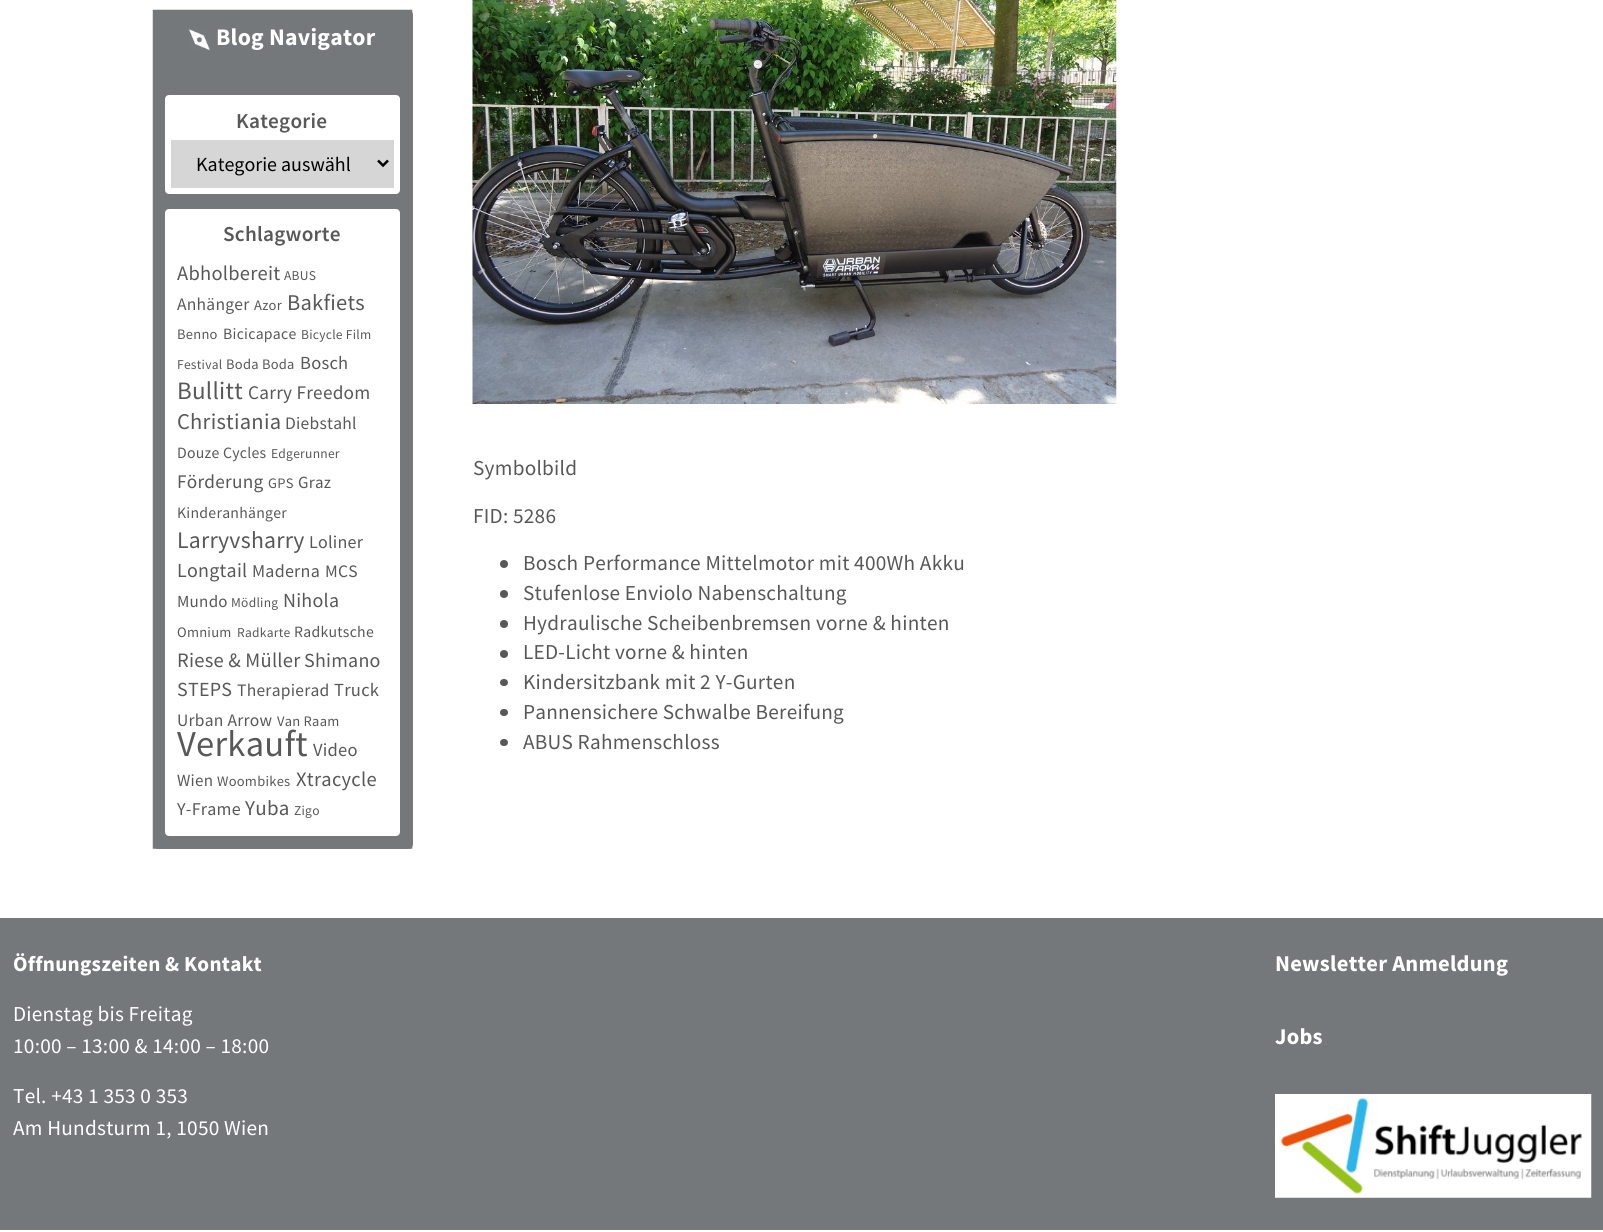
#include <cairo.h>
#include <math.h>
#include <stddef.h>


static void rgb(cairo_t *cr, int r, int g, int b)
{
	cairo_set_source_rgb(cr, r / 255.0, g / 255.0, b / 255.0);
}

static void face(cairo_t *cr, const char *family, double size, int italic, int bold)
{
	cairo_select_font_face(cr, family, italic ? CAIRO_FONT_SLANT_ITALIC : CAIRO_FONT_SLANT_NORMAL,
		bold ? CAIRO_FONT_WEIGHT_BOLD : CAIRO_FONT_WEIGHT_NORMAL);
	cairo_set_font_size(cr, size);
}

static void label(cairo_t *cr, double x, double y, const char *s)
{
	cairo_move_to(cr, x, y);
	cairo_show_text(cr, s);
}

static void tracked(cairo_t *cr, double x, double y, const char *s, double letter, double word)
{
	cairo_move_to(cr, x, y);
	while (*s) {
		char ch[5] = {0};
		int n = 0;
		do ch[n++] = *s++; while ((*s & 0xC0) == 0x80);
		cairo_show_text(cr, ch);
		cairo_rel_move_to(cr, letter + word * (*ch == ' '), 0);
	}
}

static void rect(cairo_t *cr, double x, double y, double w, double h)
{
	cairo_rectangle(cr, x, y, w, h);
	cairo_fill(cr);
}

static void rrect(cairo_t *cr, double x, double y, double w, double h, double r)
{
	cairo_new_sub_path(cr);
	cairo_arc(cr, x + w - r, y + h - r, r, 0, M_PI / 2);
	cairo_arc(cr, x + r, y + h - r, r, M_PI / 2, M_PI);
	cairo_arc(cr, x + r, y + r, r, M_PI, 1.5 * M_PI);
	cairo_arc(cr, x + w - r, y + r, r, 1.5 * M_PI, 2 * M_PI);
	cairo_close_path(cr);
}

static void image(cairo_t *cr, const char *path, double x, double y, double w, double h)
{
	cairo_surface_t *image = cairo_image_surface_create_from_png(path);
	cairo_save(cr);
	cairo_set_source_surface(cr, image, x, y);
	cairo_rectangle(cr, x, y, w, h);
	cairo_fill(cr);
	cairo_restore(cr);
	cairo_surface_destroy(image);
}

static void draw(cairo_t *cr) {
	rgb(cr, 255, 255, 255);
	cairo_paint(cr);
	rgb(cr, 117, 120, 123);
	rrect(cr, 153, 10, 260, 839, 5);
	cairo_fill(cr);
	cairo_new_path(cr);
	cairo_move_to(cr, 159, 16);
	cairo_line_to(cr, 406, 16);
	cairo_line_to(cr, 406, 842.5);
	cairo_line_to(cr, 159, 842.5);
	cairo_close_path(cr);
	cairo_set_line_width(cr, 12.5);
	cairo_stroke(cr);
	image(cr, "image0.png", 188, 29, 22, 22);
	face(cr, "Source Sans Pro", 23.75, 0, 1);
	rgb(cr, 255, 255, 255);
	tracked(cr, 216, 45, "Blog Navigator", 0.25, 0);
	rrect(cr, 168, 98, 229, 93, 1);
	cairo_fill_preserve(cr);
	cairo_set_line_width(cr, 6);
	cairo_stroke(cr);
	face(cr, "Source Sans Pro SemiBold", 21.25, 0, 0);
	rgb(cr, 88, 88, 88);
	tracked(cr, 236, 128, "Kategorie", 0.25, 0);
	rgb(cr, 214, 214, 214);
	rect(cr, 171, 140, 223, 48);
	cairo_new_path(cr);
	cairo_move_to(cr, 378, 160.5);
	cairo_line_to(cr, 383, 165.5);
	cairo_line_to(cr, 388, 160.5);
	rgb(cr, 0, 0, 0);
	cairo_set_line_width(cr, 2.5);
	cairo_stroke(cr);
	face(cr, "Source Sans Pro", 20, 0, 0);
	label(cr, 196, 171, "Kategorie auswähl");
	rgb(cr, 255, 255, 255);
	rrect(cr, 168, 212, 229, 621, 1);
	cairo_fill_preserve(cr);
	cairo_set_line_width(cr, 6);
	cairo_stroke(cr);
	face(cr, "Source Sans Pro SemiBold", 21.25, 0, 0);
	rgb(cr, 88, 88, 88);
	tracked(cr, 223, 241, "Schlagworte", 0.25, 0);
	face(cr, "Source Sans Pro", 20.5, 0, 0);
	tracked(cr, 177, 280, "Abholbereit", 0.25, 0);
	face(cr, "Source Sans Pro", 13.5, 0, 0);
	tracked(cr, 284, 280, "ABUS", 0.25, 0);
	face(cr, "Source Sans Pro", 17.5, 0, 0);
	tracked(cr, 177, 310, "Anhänger", 0.25, 0);
	face(cr, "Source Sans Pro", 14.5, 0, 0);
	tracked(cr, 254, 310, "Azor", 0.25, 0);
	face(cr, "Source Sans Pro", 22.5, 0, 0);
	tracked(cr, 287, 310, "Bakfiets", 0.25, 0);
	face(cr, "Source Sans Pro", 14.5, 0, 0);
	tracked(cr, 177, 339, "Benno", 0.25, 0);
	face(cr, "Source Sans Pro", 15.75, 0, 0);
	tracked(cr, 223, 339, "Bicicapace", 0.25, 0);
	face(cr, "Source Sans Pro", 13.5, 0, 0);
	tracked(cr, 301, 339, "Bicycle Film", 0.25, 0);
	tracked(cr, 177, 369, "Festival", 0.25, 0);
	face(cr, "Source Sans Pro", 14.5, 0, 0);
	tracked(cr, 226, 369, "Boda Boda", 0.25, 0);
	face(cr, "Source Sans Pro", 18.5, 0, 0);
	tracked(cr, 300, 369, "Bosch", 0.25, 0);
	face(cr, "Source Sans Pro", 25, 0, 0);
	tracked(cr, 177, 399, "Bullitt", 0.25, 0);
	face(cr, "Source Sans Pro", 19.25, 0, 0);
	tracked(cr, 248, 399, "Carry Freedom", 0.25, 0);
	face(cr, "Source Sans Pro", 22.5, 0, 0);
	tracked(cr, 177, 429, "Christiania", 0.25, 0);
	face(cr, "Source Sans Pro", 17.5, 0, 0);
	tracked(cr, 285, 429, "Diebstahl", 0.25, 0);
	face(cr, "Source Sans Pro", 15.75, 0, 0);
	tracked(cr, 177, 458, "Douze Cycles", 0.25, 0);
	face(cr, "Source Sans Pro", 13.5, 0, 0);
	tracked(cr, 271, 458, "Edgerunner", 0.25, 0);
	face(cr, "Source Sans Pro", 19.25, 0, 0);
	tracked(cr, 177, 488, "Förderung", 0.25, 0);
	face(cr, "Source Sans Pro", 14.5, 0, 0);
	tracked(cr, 268, 488, "GPS", 0.25, 0);
	face(cr, "Source Sans Pro", 17, 0, 0);
	tracked(cr, 298, 488, "Graz", 0.25, 0);
	face(cr, "Source Sans Pro", 15.75, 0, 0);
	tracked(cr, 177, 518, "Kinderanhänger", 0.25, 0);
	face(cr, "Source Sans Pro", 23.75, 0, 0);
	tracked(cr, 177, 548, "Larryvsharry", 0.25, 0);
	face(cr, "Source Sans Pro", 18, 0, 0);
	tracked(cr, 309, 548, "Loliner", 0.25, 0);
	face(cr, "Source Sans Pro", 20, 0, 0);
	tracked(cr, 177, 577, "Longtail", 0.25, 0);
	face(cr, "Source Sans Pro", 18, 0, 0);
	tracked(cr, 252, 577, "Maderna", 0.25, 0);
	face(cr, "Source Sans Pro", 17.5, 0, 0);
	tracked(cr, 325, 577, "MCS", 0.25, 0);
	face(cr, "Source Sans Pro", 17, 0, 0);
	tracked(cr, 177, 607, "Mundo", 0.25, 0);
	face(cr, "Source Sans Pro", 13.5, 0, 0);
	tracked(cr, 231, 607, "Mödling", 0.25, 0);
	face(cr, "Source Sans Pro", 20, 0, 0);
	tracked(cr, 283, 607, "Nihola", 0.25, 0);
	face(cr, "Source Sans Pro", 14.5, 0, 0);
	tracked(cr, 177, 637, "Omnium", 0.25, 0);
	face(cr, "Source Sans Pro", 13.5, 0, 0);
	tracked(cr, 237, 637, "Radkarte", 0.25, 0);
	face(cr, "Source Sans Pro", 15.75, 0, 0);
	tracked(cr, 294, 637, "Radkutsche", 0.25, 0);
	face(cr, "Source Sans Pro", 20.5, 0, 0);
	tracked(cr, 177, 667, "Riese & Müller", 0.25, 0);
	face(cr, "Source Sans Pro", 20, 0, 0);
	tracked(cr, 304, 667, "Shimano", 0.25, 0);
	tracked(cr, 177, 696, "STEPS", 0.25, 0);
	face(cr, "Source Sans Pro", 17.5, 0, 0);
	tracked(cr, 237, 696, "Therapierad", 0.25, 0);
	face(cr, "Source Sans Pro", 18.5, 0, 0);
	tracked(cr, 334, 696, "Truck", 0.25, 0);
	face(cr, "Source Sans Pro", 17.5, 0, 0);
	tracked(cr, 177, 726, "Urban Arrow", 0.25, 0);
	face(cr, "Source Sans Pro", 14.5, 0, 0);
	tracked(cr, 277, 726, "Van Raam", 0.25, 0);
	face(cr, "Source Sans Pro", 36.5, 0, 0);
	tracked(cr, 177, 756, "Verkauft", 0.25, 0);
	face(cr, "Source Sans Pro", 18.5, 0, 0);
	tracked(cr, 313, 756, "Video", 0.25, 0);
	face(cr, "Source Sans Pro", 17, 0, 0);
	tracked(cr, 177, 786, "Wien", 0.25, 0);
	face(cr, "Source Sans Pro", 14.5, 0, 0);
	tracked(cr, 217, 786, "Woombikes", 0.25, 0);
	face(cr, "Source Sans Pro", 20.5, 0, 0);
	tracked(cr, 296, 786, "Xtracycle", 0.25, 0);
	face(cr, "Source Sans Pro", 18, 0, 0);
	tracked(cr, 177, 815, "Y-Frame", 0.25, 0);
	face(cr, "Source Sans Pro", 21, 0, 0);
	tracked(cr, 245, 815, "Yuba", 0.25, 0);
	face(cr, "Source Sans Pro", 13.5, 0, 0);
	tracked(cr, 294, 815, "Zigo", 0.25, 0);
	image(cr, "image1.png", 472, 0, 645, 404);
	face(cr, "Source Sans Pro", 21.25, 0, 0);
	tracked(cr, 473, 475, "Symbolbild", 0.25, 0);
	tracked(cr, 473, 523, "FID: 5286", 0.25, 0);
	cairo_new_path(cr);
	cairo_arc(cr, 504, 564, 4, 0, 2 * M_PI);
	cairo_fill(cr);
	tracked(cr, 523, 570, "Bosch Performance Mittelmotor mit 400Wh Akku", 0.25, 0);
	cairo_new_path(cr);
	cairo_arc(cr, 504, 594, 4, 0, 2 * M_PI);
	cairo_fill(cr);
	tracked(cr, 523, 600, "Stufenlose Enviolo Nabenschaltung", 0.25, 0);
	cairo_new_path(cr);
	cairo_arc(cr, 504, 624, 4, 0, 2 * M_PI);
	cairo_fill(cr);
	tracked(cr, 523, 630, "Hydraulische Scheibenbremsen vorne & hinten", 0.25, 0);
	cairo_new_path(cr);
	cairo_arc(cr, 504, 654, 4, 0, 2 * M_PI);
	cairo_fill(cr);
	tracked(cr, 523, 659, "LED-Licht vorne & hinten", 0.25, 0);
	rrect(cr, 500, 679, 8, 7, 3.5);
	cairo_fill(cr);
	tracked(cr, 523, 689, "Kindersitzbank mit 2 Y-Gurten", 0.25, 0);
	rrect(cr, 500, 709, 8, 7, 3.5);
	cairo_fill(cr);
	tracked(cr, 523, 719, "Pannensichere Schwalbe Bereifung", 0.25, 0);
	rrect(cr, 500, 739, 8, 7, 3.5);
	cairo_fill(cr);
	tracked(cr, 523, 749, "ABUS Rahmenschloss", 0.25, 0);
	rgb(cr, 117, 120, 123);
	rect(cr, 0, 918, 1603, 312);
	face(cr, "Source Sans Pro", 21.25, 0, 1);
	rgb(cr, 255, 255, 255);
	tracked(cr, 13, 971, "Öffnungszeiten & Kontakt", 0.25, 0);
	face(cr, "Source Sans Pro", 21.25, 0, 0);
	tracked(cr, 13, 1021, "Dienstag bis Freitag", 0.25, 0);
	tracked(cr, 13, 1053, "10:00 – 13:00 & 14:00 – 18:00", 0.25, 0);
	tracked(cr, 13, 1103, "Tel. +43 1 353 0 353", 0.25, 0);
	tracked(cr, 13, 1135, "Am Hundsturm 1, 1050 Wien", 0.25, 0);
	face(cr, "Source Sans Pro", 22.5, 0, 1);
	tracked(cr, 1275, 971, "Newsletter Anmeldung", 0.25, 0);
	tracked(cr, 1275, 1044, "Jobs", 0.25, 0);
	image(cr, "image2.png", 1275, 1094, 317, 104);
}

int main(void) {
	cairo_surface_t *surface = cairo_image_surface_create(CAIRO_FORMAT_RGB24, 1603, 1232);
	cairo_t *cr = cairo_create(surface);
	cairo_font_options_t *options = cairo_font_options_create();
	cairo_font_options_set_hint_metrics(options, CAIRO_HINT_METRICS_OFF);
	cairo_font_options_set_hint_style(options, CAIRO_HINT_STYLE_NONE);
	cairo_set_font_options(cr, options);
	cairo_set_miter_limit(cr, 4);
	draw(cr);
	cairo_surface_write_to_png(surface, "render.png");
	cairo_font_options_destroy(options);
	cairo_destroy(cr);
	cairo_surface_destroy(surface);
	return 0;
}
